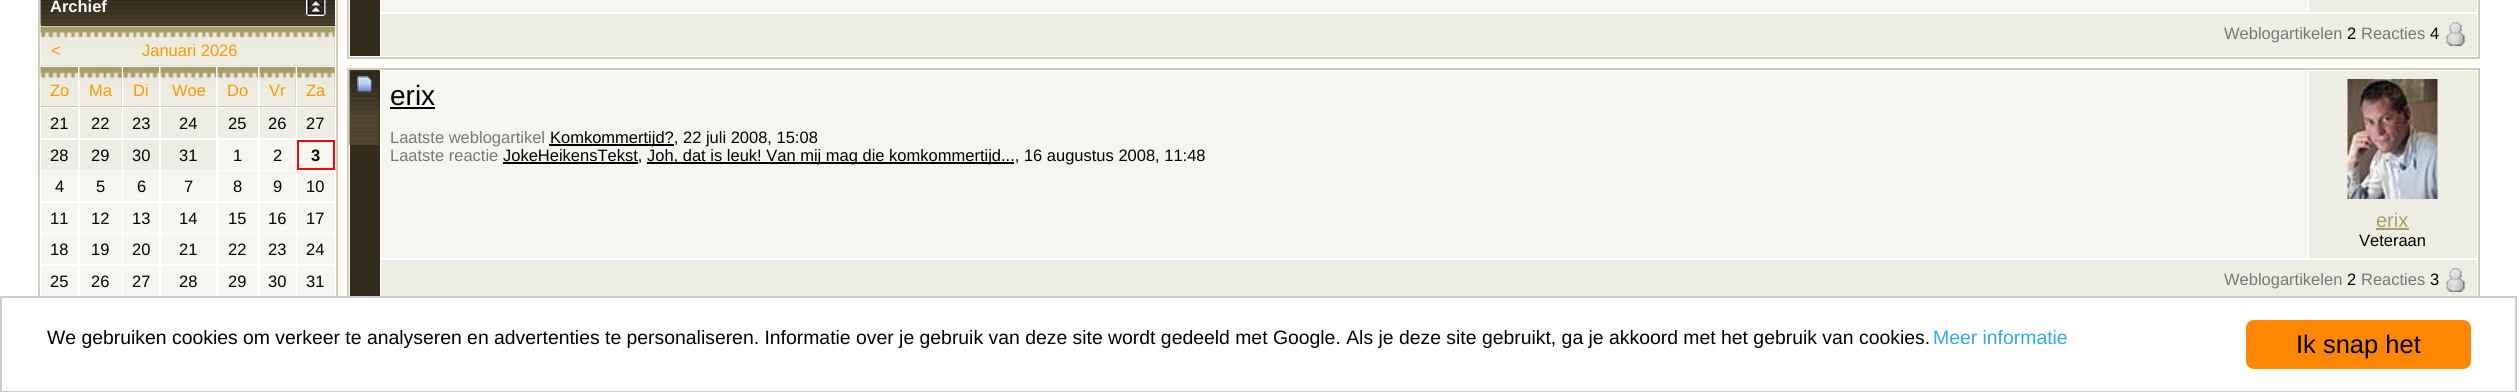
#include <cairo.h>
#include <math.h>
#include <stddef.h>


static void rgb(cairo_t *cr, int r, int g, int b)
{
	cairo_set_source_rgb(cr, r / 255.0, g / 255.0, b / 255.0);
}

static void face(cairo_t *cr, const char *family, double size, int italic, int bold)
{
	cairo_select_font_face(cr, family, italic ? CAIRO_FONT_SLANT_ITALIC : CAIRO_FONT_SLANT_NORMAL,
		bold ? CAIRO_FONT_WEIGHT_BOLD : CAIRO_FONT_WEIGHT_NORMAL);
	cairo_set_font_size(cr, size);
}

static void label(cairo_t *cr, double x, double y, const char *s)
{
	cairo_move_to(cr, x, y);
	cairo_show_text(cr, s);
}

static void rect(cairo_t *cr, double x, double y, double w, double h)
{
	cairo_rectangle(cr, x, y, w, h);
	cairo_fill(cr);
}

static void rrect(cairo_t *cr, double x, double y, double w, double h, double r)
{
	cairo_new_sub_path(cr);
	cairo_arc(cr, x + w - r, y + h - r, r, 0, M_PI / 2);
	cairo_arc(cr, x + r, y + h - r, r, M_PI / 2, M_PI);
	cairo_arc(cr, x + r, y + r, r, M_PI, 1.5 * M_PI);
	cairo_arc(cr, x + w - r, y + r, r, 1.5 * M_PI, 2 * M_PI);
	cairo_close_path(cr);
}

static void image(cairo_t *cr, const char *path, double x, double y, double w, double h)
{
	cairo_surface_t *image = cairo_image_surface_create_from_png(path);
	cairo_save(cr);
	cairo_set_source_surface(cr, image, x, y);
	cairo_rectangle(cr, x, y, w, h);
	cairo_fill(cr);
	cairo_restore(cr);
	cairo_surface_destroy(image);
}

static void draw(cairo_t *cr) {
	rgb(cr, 255, 255, 255);
	cairo_paint(cr);
	cairo_rectangle(cr, 39, -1, 298, 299);
	rgb(cr, 210, 206, 181);
	cairo_stroke(cr);
	rgb(cr, 51, 44, 28);
	rect(cr, 41, 0, 294, 26);
	image(cr, "image0.png", 40, 0, 295, 25);
	face(cr, "Liberation Sans", 16.5, 0, 1);
	rgb(cr, 255, 255, 255);
	label(cr, 50, 12, "Archief");
	image(cr, "image1.png", 306, 0, 20, 16);
	rgb(cr, 204, 199, 170);
	rect(cr, 41, 27, 294, 39);
	image(cr, "image2.png", 40, 26, 295, 40);
	face(cr, "Liberation Sans", 16.5, 0, 0);
	rgb(cr, 255, 153, 0);
	label(cr, 51, 56, "<");
	label(cr, 142, 56, "Januari 2026");
	rgb(cr, 204, 199, 170);
	rect(cr, 41, 106, 37, 1);
	image(cr, "image3.png", 40, 67, 38, 39);
	rgb(cr, 255, 153, 0);
	label(cr, 50, 96, "Zo");
	rgb(cr, 204, 199, 170);
	rect(cr, 80, 68, 42, 39);
	image(cr, "image4.png", 79, 67, 43, 39);
	rgb(cr, 255, 153, 0);
	label(cr, 89, 96, "Ma");
	rgb(cr, 204, 199, 170);
	rect(cr, 123, 106, 36, 1);
	image(cr, "image5.png", 123, 67, 36, 39);
	rgb(cr, 255, 153, 0);
	label(cr, 133, 96, "Di");
	rgb(cr, 204, 199, 170);
	rect(cr, 161, 106, 55, 1);
	image(cr, "image6.png", 160, 67, 56, 39);
	rgb(cr, 255, 153, 0);
	label(cr, 172, 96, "Woe");
	rgb(cr, 204, 199, 170);
	rect(cr, 218, 106, 40, 1);
	image(cr, "image7.png", 217, 67, 41, 39);
	rgb(cr, 255, 153, 0);
	label(cr, 227, 96, "Do");
	rgb(cr, 204, 199, 170);
	rect(cr, 260, 68, 36, 39);
	image(cr, "image8.png", 259, 67, 37, 39);
	rgb(cr, 255, 153, 0);
	label(cr, 269, 96, "Vr");
	rgb(cr, 204, 199, 170);
	rect(cr, 297, 68, 38, 39);
	image(cr, "image9.png", 297, 67, 38, 39);
	rgb(cr, 255, 153, 0);
	label(cr, 306, 96, "Za");
	rgb(cr, 238, 237, 227);
	rect(cr, 41, 108, 37, 30);
	rgb(cr, 0, 0, 0);
	label(cr, 50, 129, "21");
	rgb(cr, 238, 237, 227);
	rect(cr, 80, 108, 42, 30);
	rgb(cr, 0, 0, 0);
	label(cr, 91, 129, "22");
	rgb(cr, 238, 237, 227);
	rect(cr, 123, 108, 36, 30);
	rgb(cr, 0, 0, 0);
	label(cr, 132, 129, "23");
	rgb(cr, 238, 237, 227);
	rect(cr, 161, 108, 55, 30);
	rgb(cr, 0, 0, 0);
	label(cr, 179, 129, "24");
	rgb(cr, 238, 237, 227);
	rect(cr, 218, 108, 40, 30);
	rgb(cr, 0, 0, 0);
	label(cr, 228, 129, "25");
	rgb(cr, 238, 237, 227);
	rect(cr, 260, 108, 36, 30);
	rgb(cr, 0, 0, 0);
	label(cr, 268, 129, "26");
	rgb(cr, 238, 237, 227);
	rect(cr, 297, 108, 38, 30);
	rgb(cr, 0, 0, 0);
	label(cr, 306, 129, "27");
	rgb(cr, 238, 237, 227);
	rect(cr, 41, 140, 37, 30);
	rgb(cr, 0, 0, 0);
	label(cr, 50, 161, "28");
	rgb(cr, 238, 237, 227);
	rect(cr, 80, 140, 42, 30);
	rgb(cr, 0, 0, 0);
	label(cr, 91, 161, "29");
	rgb(cr, 238, 237, 227);
	rect(cr, 123, 140, 36, 30);
	rgb(cr, 0, 0, 0);
	label(cr, 132, 161, "30");
	rgb(cr, 238, 237, 227);
	rect(cr, 161, 140, 55, 30);
	rgb(cr, 0, 0, 0);
	label(cr, 179, 161, "31");
	rgb(cr, 247, 245, 242);
	rect(cr, 218, 140, 40, 30);
	rgb(cr, 0, 0, 0);
	label(cr, 233, 161, "1");
	rgb(cr, 247, 245, 242);
	rect(cr, 260, 140, 36, 30);
	rgb(cr, 0, 0, 0);
	label(cr, 273, 161, "2");
	rgb(cr, 247, 245, 242);
	cairo_rectangle(cr, 298, 141, 36, 28);
	cairo_fill_preserve(cr);
	rgb(cr, 255, 0, 0);
	cairo_stroke(cr);
	face(cr, "Liberation Sans", 16.5, 0, 1);
	rgb(cr, 0, 0, 0);
	label(cr, 311, 161, "3");
	rgb(cr, 247, 245, 242);
	rect(cr, 41, 171, 37, 30);
	face(cr, "Liberation Sans", 16.5, 0, 0);
	rgb(cr, 0, 0, 0);
	label(cr, 55, 192, "4");
	rgb(cr, 247, 245, 242);
	rect(cr, 80, 171, 42, 30);
	rgb(cr, 0, 0, 0);
	label(cr, 96, 192, "5");
	rgb(cr, 247, 245, 242);
	rect(cr, 123, 171, 36, 30);
	rgb(cr, 0, 0, 0);
	label(cr, 137, 192, "6");
	rgb(cr, 247, 245, 242);
	rect(cr, 161, 171, 55, 30);
	rgb(cr, 0, 0, 0);
	label(cr, 184, 192, "7");
	rgb(cr, 247, 245, 242);
	rect(cr, 218, 171, 40, 30);
	rgb(cr, 0, 0, 0);
	label(cr, 233, 192, "8");
	rgb(cr, 247, 245, 242);
	rect(cr, 260, 171, 36, 30);
	rgb(cr, 0, 0, 0);
	label(cr, 273, 192, "9");
	rgb(cr, 247, 245, 242);
	rect(cr, 297, 171, 38, 30);
	rgb(cr, 0, 0, 0);
	label(cr, 306, 192, "10");
	rgb(cr, 247, 245, 242);
	rect(cr, 41, 203, 37, 30);
	rgb(cr, 0, 0, 0);
	label(cr, 50, 224, "11");
	rgb(cr, 247, 245, 242);
	rect(cr, 80, 203, 42, 30);
	rgb(cr, 0, 0, 0);
	label(cr, 91, 224, "12");
	rgb(cr, 247, 245, 242);
	rect(cr, 123, 203, 36, 30);
	rgb(cr, 0, 0, 0);
	label(cr, 132, 224, "13");
	rgb(cr, 247, 245, 242);
	rect(cr, 161, 203, 55, 30);
	rgb(cr, 0, 0, 0);
	label(cr, 179, 224, "14");
	rgb(cr, 247, 245, 242);
	rect(cr, 218, 203, 40, 30);
	rgb(cr, 0, 0, 0);
	label(cr, 228, 224, "15");
	rgb(cr, 247, 245, 242);
	rect(cr, 260, 203, 36, 30);
	rgb(cr, 0, 0, 0);
	label(cr, 268, 224, "16");
	rgb(cr, 247, 245, 242);
	rect(cr, 297, 203, 38, 30);
	rgb(cr, 0, 0, 0);
	label(cr, 306, 224, "17");
	rgb(cr, 247, 245, 242);
	rect(cr, 41, 234, 37, 30);
	rgb(cr, 0, 0, 0);
	label(cr, 50, 255, "18");
	rgb(cr, 247, 245, 242);
	rect(cr, 80, 234, 42, 30);
	rgb(cr, 0, 0, 0);
	label(cr, 91, 255, "19");
	rgb(cr, 247, 245, 242);
	rect(cr, 123, 234, 36, 30);
	rgb(cr, 0, 0, 0);
	label(cr, 132, 255, "20");
	rgb(cr, 247, 245, 242);
	rect(cr, 161, 234, 55, 30);
	rgb(cr, 0, 0, 0);
	label(cr, 179, 255, "21");
	rgb(cr, 247, 245, 242);
	rect(cr, 218, 234, 40, 30);
	rgb(cr, 0, 0, 0);
	label(cr, 228, 255, "22");
	rgb(cr, 247, 245, 242);
	rect(cr, 260, 234, 36, 30);
	rgb(cr, 0, 0, 0);
	label(cr, 268, 255, "23");
	rgb(cr, 247, 245, 242);
	rect(cr, 297, 234, 38, 30);
	rgb(cr, 0, 0, 0);
	label(cr, 306, 255, "24");
	rgb(cr, 247, 245, 242);
	rect(cr, 41, 266, 37, 30);
	rgb(cr, 0, 0, 0);
	label(cr, 50, 287, "25");
	rgb(cr, 247, 245, 242);
	rect(cr, 80, 266, 42, 30);
	rgb(cr, 0, 0, 0);
	label(cr, 91, 287, "26");
	rgb(cr, 247, 245, 242);
	rect(cr, 123, 266, 36, 30);
	rgb(cr, 0, 0, 0);
	label(cr, 132, 287, "27");
	rgb(cr, 247, 245, 242);
	rect(cr, 161, 266, 55, 30);
	rgb(cr, 0, 0, 0);
	label(cr, 179, 287, "28");
	rgb(cr, 247, 245, 242);
	rect(cr, 218, 266, 40, 30);
	rgb(cr, 0, 0, 0);
	label(cr, 228, 287, "29");
	rgb(cr, 247, 245, 242);
	rect(cr, 260, 266, 36, 30);
	rgb(cr, 0, 0, 0);
	label(cr, 268, 287, "30");
	rgb(cr, 247, 245, 242);
	rect(cr, 297, 266, 38, 30);
	rgb(cr, 0, 0, 0);
	label(cr, 306, 287, "31");
	cairo_rectangle(cr, 348, -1, 2131, 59);
	rgb(cr, 210, 206, 181);
	cairo_stroke(cr);
	rgb(cr, 51, 44, 28);
	rect(cr, 350, 0, 30, 56);
	rgb(cr, 247, 245, 242);
	rect(cr, 381, 0, 1926, 12);
	rgb(cr, 238, 237, 227);
	rect(cr, 2309, 0, 168, 12);
	rect(cr, 381, 14, 2096, 42);
	rgb(cr, 119, 119, 119);
	label(cr, 2224, 39, "Weblogartikelen");
	rgb(cr, 0, 0, 0);
	label(cr, 2347, 39, "2");
	rgb(cr, 119, 119, 119);
	label(cr, 2361, 39, "Reacties");
	rgb(cr, 0, 0, 0);
	label(cr, 2430, 39, "4");
	image(cr, "image10.png", 2446, 22, 19, 24);
	cairo_rectangle(cr, 348, 69, 2131, 235);
	rgb(cr, 210, 206, 181);
	cairo_stroke(cr);
	rgb(cr, 51, 44, 28);
	rect(cr, 350, 71, 30, 225);
	image(cr, "image11.png", 349, 70, 31, 75);
	image(cr, "image12.png", 357, 76, 15, 17);
	rgb(cr, 247, 245, 242);
	rect(cr, 381, 71, 1926, 187);
	face(cr, "Liberation Sans", 28, 0, 0);
	rgb(cr, 0, 0, 0);
	label(cr, 390, 105, "erix");
	rect(cr, 390, 107, 45, 2);
	face(cr, "Liberation Sans", 16.5, 0, 0);
	rgb(cr, 119, 119, 119);
	label(cr, 390, 143, "Laatste weblogartikel");
	rgb(cr, 0, 0, 0);
	rect(cr, 549, 144, 125, 2);
	label(cr, 550, 143, "Komkommertijd?, 22 juli 2008, 15:08");
	rgb(cr, 119, 119, 119);
	label(cr, 390, 161, "Laatste reactie");
	rgb(cr, 0, 0, 0);
	rect(cr, 503, 162, 135, 2);
	label(cr, 503, 161, "JokeHeikensTekst,");
	rect(cr, 647, 162, 367, 2);
	label(cr, 647, 161, "Joh, dat is leuk! Van mij mag die komkommertijd..., 16 augustus 2008, 11:48");
	rgb(cr, 238, 237, 227);
	rect(cr, 2309, 71, 168, 187);
	image(cr, "image13.png", 2347, 79, 91, 120);
	face(cr, "Liberation Sans", 20, 0, 0);
	rgb(cr, 166, 157, 106);
	label(cr, 2376, 227, "erix");
	rect(cr, 2376, 228, 33, 2);
	face(cr, "Liberation Sans", 16.5, 0, 0);
	rgb(cr, 0, 0, 0);
	label(cr, 2359, 246, "Veteraan");
	rgb(cr, 238, 237, 227);
	rect(cr, 381, 260, 2096, 36);
	rgb(cr, 119, 119, 119);
	label(cr, 2224, 285, "Weblogartikelen");
	rgb(cr, 0, 0, 0);
	label(cr, 2347, 285, "2");
	rgb(cr, 119, 119, 119);
	label(cr, 2361, 285, "Reacties");
	rgb(cr, 0, 0, 0);
	label(cr, 2430, 285, "3");
	image(cr, "image10.png", 2446, 268, 19, 24);
	rgb(cr, 255, 255, 255);
	rect(cr, 38, 298, 2442, 7);
	cairo_rectangle(cr, 1, 297, 2515, 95);
	rgb(cr, 204, 204, 204);
	cairo_stroke(cr);
	face(cr, "Liberation Sans", 19.38, 0, 0);
	rgb(cr, 0, 0, 0);
	label(cr, 47, 344, "We gebruiken cookies om verkeer te analyseren en advertenties te personaliseren. Informatie over je gebruik van deze site wordt gedeeld met Google. Als je deze site gebruikt, ga je akkoord met het gebruik van cookies.");
	rgb(cr, 49, 168, 240);
	label(cr, 1933, 344, "Meer informatie");
	rgb(cr, 253, 134, 2);
	rrect(cr, 2246, 320, 225, 49, 8);
	cairo_fill(cr);
	face(cr, "Liberation Sans", 25.5, 0, 0);
	rgb(cr, 0, 0, 0);
	label(cr, 2296, 353, "Ik snap het");
}

int main(void) {
	cairo_surface_t *surface = cairo_image_surface_create(CAIRO_FORMAT_RGB24, 2517, 392);
	cairo_t *cr = cairo_create(surface);
	cairo_font_options_t *options = cairo_font_options_create();
	cairo_font_options_set_hint_metrics(options, CAIRO_HINT_METRICS_OFF);
	cairo_font_options_set_hint_style(options, CAIRO_HINT_STYLE_NONE);
	cairo_set_font_options(cr, options);
	cairo_set_miter_limit(cr, 4);
	draw(cr);
	cairo_surface_write_to_png(surface, "render.png");
	cairo_font_options_destroy(options);
	cairo_destroy(cr);
	cairo_surface_destroy(surface);
	return 0;
}
